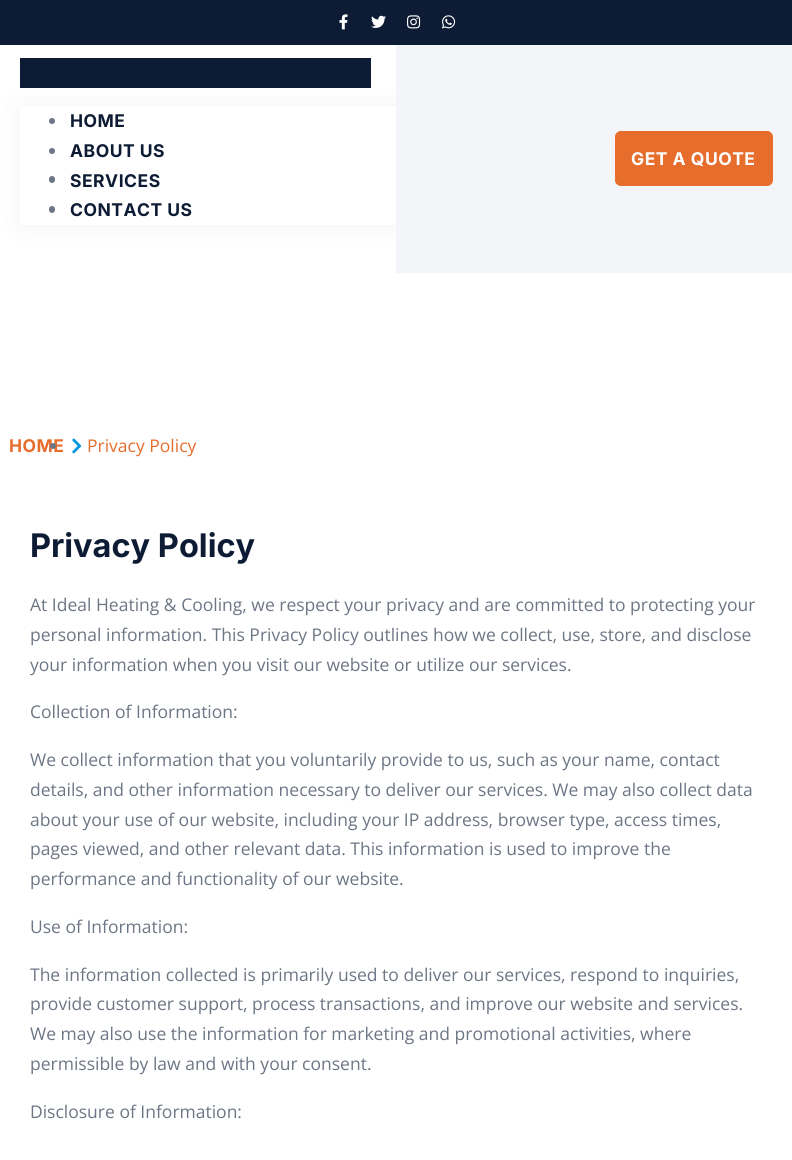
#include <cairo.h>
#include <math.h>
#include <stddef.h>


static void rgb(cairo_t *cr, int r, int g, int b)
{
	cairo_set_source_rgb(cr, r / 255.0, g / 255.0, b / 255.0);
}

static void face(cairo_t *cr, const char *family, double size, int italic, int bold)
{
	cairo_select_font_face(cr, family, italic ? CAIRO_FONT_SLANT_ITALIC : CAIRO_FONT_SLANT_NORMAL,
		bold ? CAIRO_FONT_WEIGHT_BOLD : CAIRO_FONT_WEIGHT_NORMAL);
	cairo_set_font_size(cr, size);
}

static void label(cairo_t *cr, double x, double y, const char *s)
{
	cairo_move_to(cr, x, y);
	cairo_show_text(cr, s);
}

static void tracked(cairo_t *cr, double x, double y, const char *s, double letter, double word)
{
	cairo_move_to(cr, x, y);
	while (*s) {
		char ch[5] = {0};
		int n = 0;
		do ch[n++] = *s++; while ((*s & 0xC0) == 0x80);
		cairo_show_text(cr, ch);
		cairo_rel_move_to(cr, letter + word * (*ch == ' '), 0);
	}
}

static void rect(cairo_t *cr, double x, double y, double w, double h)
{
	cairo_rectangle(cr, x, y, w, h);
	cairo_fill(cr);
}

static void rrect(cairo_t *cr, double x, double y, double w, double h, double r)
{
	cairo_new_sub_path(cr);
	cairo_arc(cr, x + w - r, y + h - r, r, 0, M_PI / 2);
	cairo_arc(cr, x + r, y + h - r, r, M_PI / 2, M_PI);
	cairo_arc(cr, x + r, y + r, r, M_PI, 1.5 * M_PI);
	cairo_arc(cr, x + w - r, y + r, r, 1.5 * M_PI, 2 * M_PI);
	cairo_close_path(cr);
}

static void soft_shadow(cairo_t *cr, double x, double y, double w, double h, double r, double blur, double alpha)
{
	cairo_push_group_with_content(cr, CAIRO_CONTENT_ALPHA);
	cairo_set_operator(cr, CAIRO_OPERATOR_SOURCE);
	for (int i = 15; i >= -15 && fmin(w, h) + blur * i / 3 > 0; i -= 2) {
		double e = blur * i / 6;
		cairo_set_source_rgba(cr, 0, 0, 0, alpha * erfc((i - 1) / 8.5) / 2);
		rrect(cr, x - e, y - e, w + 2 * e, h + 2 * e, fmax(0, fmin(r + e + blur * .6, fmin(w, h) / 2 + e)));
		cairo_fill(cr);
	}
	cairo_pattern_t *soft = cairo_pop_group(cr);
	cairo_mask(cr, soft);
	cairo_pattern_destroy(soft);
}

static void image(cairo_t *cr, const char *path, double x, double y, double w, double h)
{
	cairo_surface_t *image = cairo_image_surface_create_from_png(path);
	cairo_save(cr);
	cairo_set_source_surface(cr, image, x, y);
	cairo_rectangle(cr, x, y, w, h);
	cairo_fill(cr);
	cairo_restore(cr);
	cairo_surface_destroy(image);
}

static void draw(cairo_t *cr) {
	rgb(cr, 255, 255, 255);
	cairo_paint(cr);
	rgb(cr, 13, 28, 52);
	rect(cr, 0, 0, 792, 45);
	image(cr, "image0.png", 339, 14, 9, 16);
	image(cr, "image1.png", 371, 15, 15, 13);
	image(cr, "image2.png", 407, 15, 14, 14);
	image(cr, "image3.png", 442, 15, 14, 14);
	rect(cr, 20, 58, 351, 30);
	rgb(cr, 0, 0, 0);
	soft_shadow(cr, 20, 106, 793, 119, 0, 12.5, 0.05);
	rgb(cr, 255, 255, 255);
	rect(cr, 20, 106, 376, 119);
	rgb(cr, 109, 118, 133);
	cairo_arc(cr, 52, 121, 3, 0, 2 * M_PI);
	cairo_fill(cr);
	face(cr, "Inter", 17.5, 0, 1);
	rgb(cr, 13, 28, 52);
	tracked(cr, 70, 127, "HOME", 0.5, 0);
	rgb(cr, 109, 118, 133);
	cairo_new_path(cr);
	cairo_arc(cr, 52, 151, 3, 0, 2 * M_PI);
	cairo_fill(cr);
	rgb(cr, 13, 28, 52);
	tracked(cr, 70, 157, "ABOUT US", 0.5, 0);
	rgb(cr, 109, 118, 133);
	rrect(cr, 49, 176, 6, 7, 3);
	cairo_fill(cr);
	rgb(cr, 13, 28, 52);
	tracked(cr, 70, 187, "SERVICES", 0.5, 0);
	rgb(cr, 109, 118, 133);
	rrect(cr, 49, 206, 6, 7, 3);
	cairo_fill(cr);
	rgb(cr, 13, 28, 52);
	tracked(cr, 70, 216, "CONTACT US", 0.5, 0);
	rgb(cr, 243, 245, 248);
	rect(cr, 396, 45, 396, 228);
	rgb(cr, 231, 109, 45);
	rrect(cr, 615.5, 131.5, 157, 54, 5.5);
	cairo_fill_preserve(cr);
	cairo_set_line_width(cr, 1);
	cairo_stroke(cr);
	rgb(cr, 255, 255, 255);
	tracked(cr, 631, 165, "GET A QUOTE", 0.5, 0);
	rgb(cr, 231, 109, 45);
	tracked(cr, 9, 452, "HOME", 0.5, 0);
	rgb(cr, 109, 118, 133);
	cairo_new_path(cr);
	cairo_arc(cr, 53, 446, 3, 0, 2 * M_PI);
	cairo_fill(cr);
	image(cr, "image4.png", 72, 438, 10, 16);
	face(cr, "Open Sans", 17.5, 0, 0);
	rgb(cr, 231, 109, 45);
	label(cr, 87, 452, "Privacy Policy");
	face(cr, "Inter", 32.5, 0, 1);
	rgb(cr, 13, 28, 52);
	label(cr, 30, 557, "Privacy Policy");
	face(cr, "Open Sans", 17.5, 0, 0);
	rgb(cr, 109, 118, 133);
	label(cr, 30, 611, "At Ideal Heating & Cooling, we respect your privacy and are committed to protecting your");
	label(cr, 30, 641, "personal information. This Privacy Policy outlines how we collect, use, store, and disclose");
	label(cr, 30, 671, "your information when you visit our website or utilize our services.");
	label(cr, 30, 718, "Collection of Information:");
	label(cr, 30, 766, "We collect information that you voluntarily provide to us, such as your name, contact");
	label(cr, 30, 796, "details, and other information necessary to deliver our services. We may also collect data");
	label(cr, 30, 826, "about your use of our website, including your IP address, browser type, access times,");
	label(cr, 30, 855, "pages viewed, and other relevant data. This information is used to improve the");
	label(cr, 30, 885, "performance and functionality of our website.");
	label(cr, 30, 933, "Use of Information:");
	label(cr, 30, 981, "The information collected is primarily used to deliver our services, respond to inquiries,");
	label(cr, 30, 1010, "provide customer support, process transactions, and improve our website and services.");
	label(cr, 30, 1040, "We may also use the information for marketing and promotional activities, where");
	label(cr, 30, 1070, "permissible by law and with your consent.");
	label(cr, 30, 1118, "Disclosure of Information:");
}

int main(void) {
	cairo_surface_t *surface = cairo_image_surface_create(CAIRO_FORMAT_RGB24, 792, 1160);
	cairo_t *cr = cairo_create(surface);
	cairo_font_options_t *options = cairo_font_options_create();
	cairo_font_options_set_hint_metrics(options, CAIRO_HINT_METRICS_OFF);
	cairo_font_options_set_hint_style(options, CAIRO_HINT_STYLE_NONE);
	cairo_set_font_options(cr, options);
	cairo_set_miter_limit(cr, 4);
	draw(cr);
	cairo_surface_write_to_png(surface, "render.png");
	cairo_font_options_destroy(options);
	cairo_destroy(cr);
	cairo_surface_destroy(surface);
	return 0;
}
